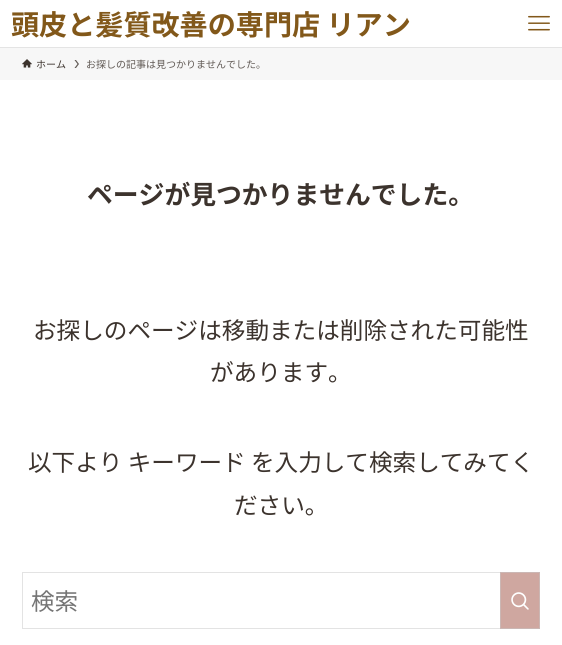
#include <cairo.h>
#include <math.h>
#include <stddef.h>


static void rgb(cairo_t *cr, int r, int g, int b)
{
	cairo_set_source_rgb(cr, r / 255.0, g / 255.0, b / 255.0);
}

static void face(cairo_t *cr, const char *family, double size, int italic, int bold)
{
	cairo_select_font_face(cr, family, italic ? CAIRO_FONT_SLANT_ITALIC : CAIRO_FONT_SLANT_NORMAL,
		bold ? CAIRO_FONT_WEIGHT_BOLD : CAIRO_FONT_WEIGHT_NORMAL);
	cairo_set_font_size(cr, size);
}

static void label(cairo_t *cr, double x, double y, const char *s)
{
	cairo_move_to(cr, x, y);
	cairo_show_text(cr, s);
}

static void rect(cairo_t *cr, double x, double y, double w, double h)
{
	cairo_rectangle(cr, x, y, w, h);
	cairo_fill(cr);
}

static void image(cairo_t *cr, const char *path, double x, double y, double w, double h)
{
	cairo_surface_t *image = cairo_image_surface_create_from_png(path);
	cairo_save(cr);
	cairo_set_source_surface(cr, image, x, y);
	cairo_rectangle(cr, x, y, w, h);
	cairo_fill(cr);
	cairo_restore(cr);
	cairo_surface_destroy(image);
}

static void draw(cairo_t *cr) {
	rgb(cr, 255, 255, 255);
	cairo_paint(cr);
	rgb(cr, 228, 228, 228);
	rect(cr, 0, 47, 562, 1);
	face(cr, "Noto Sans JP", 28.1, 0, 1);
	rgb(cr, 130, 88, 26);
	label(cr, 11, 35, "頭皮と髪質改善の専門店 リアン");
	image(cr, "image0.png", 528, 15, 22, 16);
	rgb(cr, 247, 247, 247);
	rect(cr, 0, 48, 562, 32);
	image(cr, "image1.png", 22, 59, 10, 9);
	face(cr, "Noto Sans JP", 10, 0, 0);
	rgb(cr, 60, 51, 45);
	label(cr, 36, 68, "ホーム");
	rgb(cr, 97, 90, 85);
	cairo_new_path(cr);
	cairo_move_to(cr, 76, 60);
	cairo_line_to(cr, 74.5, 60);
	cairo_line_to(cr, 77.5, 64);
	cairo_line_to(cr, 74.5, 68);
	cairo_line_to(cr, 76, 68);
	cairo_line_to(cr, 79, 64);
	cairo_close_path(cr);
	cairo_fill(cr);
	label(cr, 86, 68, "お探しの記事は見つかりませんでした。");
	face(cr, "Noto Sans JP", 25.8, 0, 1);
	rgb(cr, 60, 51, 45);
	label(cr, 87, 204, "ページが見つかりませんでした。");
	face(cr, "Noto Sans JP", 23.6, 0, 0);
	label(cr, 33, 339, "お探しのページは移動または削除された可能性");
	label(cr, 210, 381, "があります。");
	label(cr, 28, 471, "以下より キーワード を入力して検索してみてく");
	label(cr, 234, 514, "ださい。");
	cairo_rectangle(cr, 22.5, 572.5, 517, 56);
	rgb(cr, 227, 227, 227);
	cairo_set_line_width(cr, 1);
	cairo_stroke(cr);
	rgb(cr, 117, 117, 117);
	label(cr, 31, 610, "検索");
	rgb(cr, 207, 167, 160);
	cairo_rectangle(cr, 500.5, 572.5, 39, 56);
	cairo_fill_preserve(cr);
	rgb(cr, 203, 183, 180);
	cairo_stroke(cr);
	image(cr, "image2.png", 511, 592, 18, 18);
}

int main(void) {
	cairo_surface_t *surface = cairo_image_surface_create(CAIRO_FORMAT_RGB24, 562, 645);
	cairo_t *cr = cairo_create(surface);
	cairo_font_options_t *options = cairo_font_options_create();
	cairo_font_options_set_hint_metrics(options, CAIRO_HINT_METRICS_OFF);
	cairo_font_options_set_hint_style(options, CAIRO_HINT_STYLE_NONE);
	cairo_set_font_options(cr, options);
	cairo_set_miter_limit(cr, 4);
	draw(cr);
	cairo_surface_write_to_png(surface, "render.png");
	cairo_font_options_destroy(options);
	cairo_destroy(cr);
	cairo_surface_destroy(surface);
	return 0;
}
